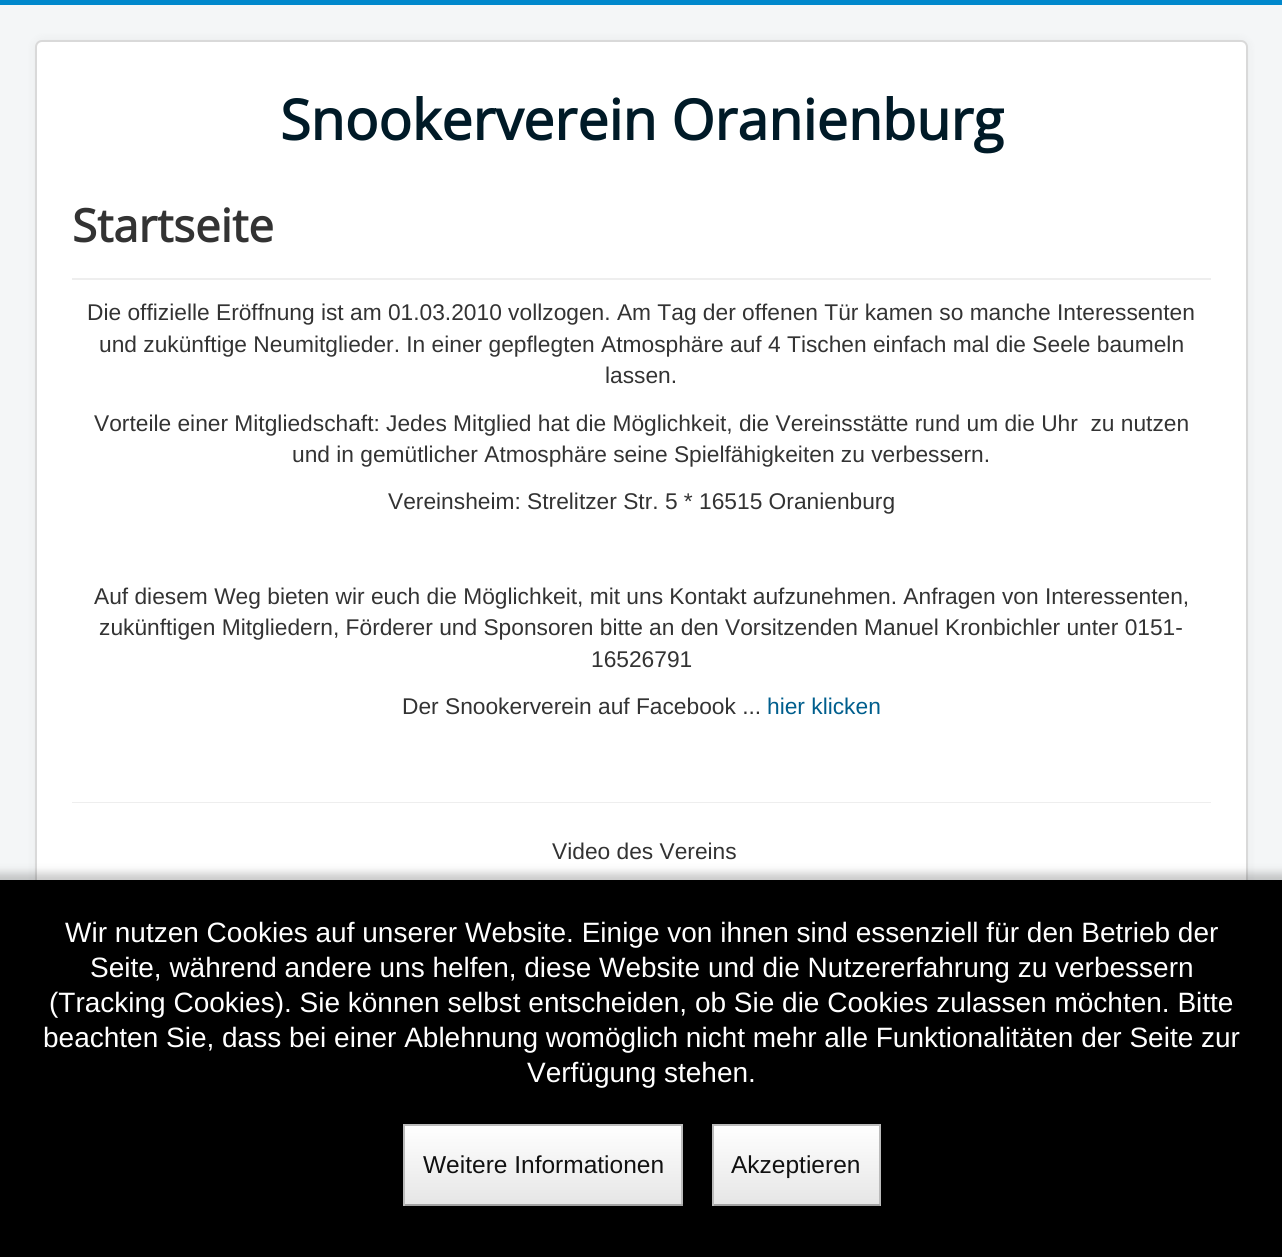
#include <cairo.h>
#include <math.h>
#include <stddef.h>


static void rgb(cairo_t *cr, int r, int g, int b)
{
	cairo_set_source_rgb(cr, r / 255.0, g / 255.0, b / 255.0);
}

static void face(cairo_t *cr, const char *family, double size, int italic, int bold)
{
	cairo_select_font_face(cr, family, italic ? CAIRO_FONT_SLANT_ITALIC : CAIRO_FONT_SLANT_NORMAL,
		bold ? CAIRO_FONT_WEIGHT_BOLD : CAIRO_FONT_WEIGHT_NORMAL);
	cairo_set_font_size(cr, size);
}

static void label(cairo_t *cr, double x, double y, const char *s)
{
	cairo_move_to(cr, x, y);
	cairo_show_text(cr, s);
}

static void rect(cairo_t *cr, double x, double y, double w, double h)
{
	cairo_rectangle(cr, x, y, w, h);
	cairo_fill(cr);
}

static void rrect(cairo_t *cr, double x, double y, double w, double h, double r)
{
	cairo_new_sub_path(cr);
	cairo_arc(cr, x + w - r, y + h - r, r, 0, M_PI / 2);
	cairo_arc(cr, x + r, y + h - r, r, M_PI / 2, M_PI);
	cairo_arc(cr, x + r, y + r, r, M_PI, 1.5 * M_PI);
	cairo_arc(cr, x + w - r, y + r, r, 1.5 * M_PI, 2 * M_PI);
	cairo_close_path(cr);
}

static void soft_shadow(cairo_t *cr, double x, double y, double w, double h, double r, double blur, double alpha)
{
	cairo_push_group_with_content(cr, CAIRO_CONTENT_ALPHA);
	cairo_set_operator(cr, CAIRO_OPERATOR_SOURCE);
	for (int i = 15; i >= -15 && fmin(w, h) + blur * i / 3 > 0; i -= 2) {
		double e = blur * i / 6;
		cairo_set_source_rgba(cr, 0, 0, 0, alpha * erfc((i - 1) / 8.5) / 2);
		rrect(cr, x - e, y - e, w + 2 * e, h + 2 * e, fmax(0, fmin(r + e + blur * .6, fmin(w, h) / 2 + e)));
		cairo_fill(cr);
	}
	cairo_pattern_t *soft = cairo_pop_group(cr);
	cairo_mask(cr, soft);
	cairo_pattern_destroy(soft);
}

static void draw(cairo_t *cr) {
	cairo_pattern_t *gradient;
	rgb(cr, 244, 246, 247);
	cairo_paint(cr);
	rgb(cr, 0, 136, 204);
	rect(cr, 0, 0, 1282, 5);
	rgb(cr, 0, 0, 0);
	soft_shadow(cr, 35, 40, 1213, 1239, 7, 5, 0.05);
	rgb(cr, 255, 255, 255);
	rrect(cr, 35, 40, 1213, 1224, 7);
	cairo_fill(cr);
	rrect(cr, 36, 41, 1211, 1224, 6);
	cairo_set_source_rgba(cr, 0, 0, 0, 0.15);
	cairo_stroke(cr);
	face(cr, "Open Sans", 55.75, 0, 1);
	rgb(cr, 0, 26, 39);
	label(cr, 280, 140, "Snookerverein Oranienburg");
	rgb(cr, 238, 238, 238);
	rect(cr, 72, 278, 1139, 2);
	face(cr, "Open Sans", 45.5, 0, 1);
	rgb(cr, 51, 51, 51);
	label(cr, 72, 242, "Startseite");
	face(cr, "Liberation Sans", 22.75, 0, 0);
	label(cr, 87, 320, "Die offizielle Eröffnung ist am 01.03.2010 vollzogen. Am Tag der offenen Tür kamen so manche Interessenten");
	label(cr, 99, 352, "und zukünftige Neumitglieder. In einer gepflegten Atmosphäre auf 4 Tischen einfach mal die Seele baumeln");
	label(cr, 605, 383, "lassen.");
	label(cr, 94, 431, "Vorteile einer Mitgliedschaft: Jedes Mitglied hat die Möglichkeit, die Vereinsstätte rund um die Uhr  zu nutzen");
	label(cr, 292, 462, "und in gemütlicher Atmosphäre seine Spielfähigkeiten zu verbessern.");
	label(cr, 388, 509, "Vereinsheim: Strelitzer Str. 5 * 16515 Oranienburg");
	label(cr, 94, 604, "Auf diesem Weg bieten wir euch die Möglichkeit, mit uns Kontakt aufzunehmen. Anfragen von Interessenten,");
	label(cr, 99, 635, "zukünftigen Mitgliedern, Förderer und Sponsoren bitte an den Vorsitzenden Manuel Kronbichler unter 0151-");
	label(cr, 591, 667, "16526791");
	label(cr, 402, 714, "Der Snookerverein auf Facebook ...");
	rgb(cr, 0, 94, 141);
	label(cr, 767, 714, "hier klicken");
	rgb(cr, 238, 238, 238);
	rect(cr, 72, 802, 1139, 1);
	rgb(cr, 51, 51, 51);
	label(cr, 552, 859, "Video des Vereins");
	rgb(cr, 0, 0, 0);
	soft_shadow(cr, -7, 873, 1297, 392, 0, 4.5, 0.21);
	rgb(cr, 0, 0, 0);
	rect(cr, 0, 880, 1282, 377);
	face(cr, "Liberation Sans", 28, 0, 0);
	rgb(cr, 255, 255, 255);
	label(cr, 65, 942, "Wir nutzen Cookies auf unserer Website. Einige von ihnen sind essenziell für den Betrieb der");
	label(cr, 90, 977, "Seite, während andere uns helfen, diese Website und die Nutzererfahrung zu verbessern");
	label(cr, 49, 1012, "(Tracking Cookies). Sie können selbst entscheiden, ob Sie die Cookies zulassen möchten. Bitte");
	label(cr, 43, 1047, "beachten Sie, dass bei einer Ablehnung womöglich nicht mehr alle Funktionalitäten der Seite zur");
	label(cr, 527, 1082, "Verfügung stehen.");
	gradient = cairo_pattern_create_linear(543, 1125, 543, 1204);
	cairo_pattern_add_color_stop_rgba(gradient, 0, 1, 1, 1, 1);
	cairo_pattern_add_color_stop_rgba(gradient, 1, 0.902, 0.902, 0.902, 1);
	cairo_set_source(cr, gradient);
	cairo_pattern_destroy(gradient);
	rect(cr, 405, 1126, 276, 78);
	rgb(cr, 187, 187, 187);
	rect(cr, 403, 1124, 280, 2);
	rect(cr, 681, 1124, 2, 82);
	rgb(cr, 162, 162, 162);
	rect(cr, 403, 1204, 280, 2);
	rgb(cr, 187, 187, 187);
	rect(cr, 403, 1124, 2, 82);
	face(cr, "Liberation Sans", 24.5, 0, 0);
	rgb(cr, 17, 17, 17);
	label(cr, 423, 1173, "Weitere Informationen");
	gradient = cairo_pattern_create_linear(796, 1125, 796, 1204);
	cairo_pattern_add_color_stop_rgba(gradient, 0, 1, 1, 1, 1);
	cairo_pattern_add_color_stop_rgba(gradient, 1, 0.902, 0.902, 0.902, 1);
	cairo_set_source(cr, gradient);
	cairo_pattern_destroy(gradient);
	rect(cr, 714, 1126, 165, 78);
	rgb(cr, 187, 187, 187);
	rect(cr, 712, 1124, 168, 2);
	rect(cr, 879, 1124, 2, 82);
	rgb(cr, 162, 162, 162);
	rect(cr, 712, 1204, 168, 2);
	rgb(cr, 187, 187, 187);
	rect(cr, 712, 1124, 2, 82);
	rgb(cr, 17, 17, 17);
	label(cr, 731, 1173, "Akzeptieren");
}

int main(void) {
	cairo_surface_t *surface = cairo_image_surface_create(CAIRO_FORMAT_RGB24, 1282, 1257);
	cairo_t *cr = cairo_create(surface);
	cairo_font_options_t *options = cairo_font_options_create();
	cairo_font_options_set_hint_metrics(options, CAIRO_HINT_METRICS_OFF);
	cairo_font_options_set_hint_style(options, CAIRO_HINT_STYLE_NONE);
	cairo_set_font_options(cr, options);
	cairo_set_miter_limit(cr, 4);
	draw(cr);
	cairo_surface_write_to_png(surface, "render.png");
	cairo_font_options_destroy(options);
	cairo_destroy(cr);
	cairo_surface_destroy(surface);
	return 0;
}
